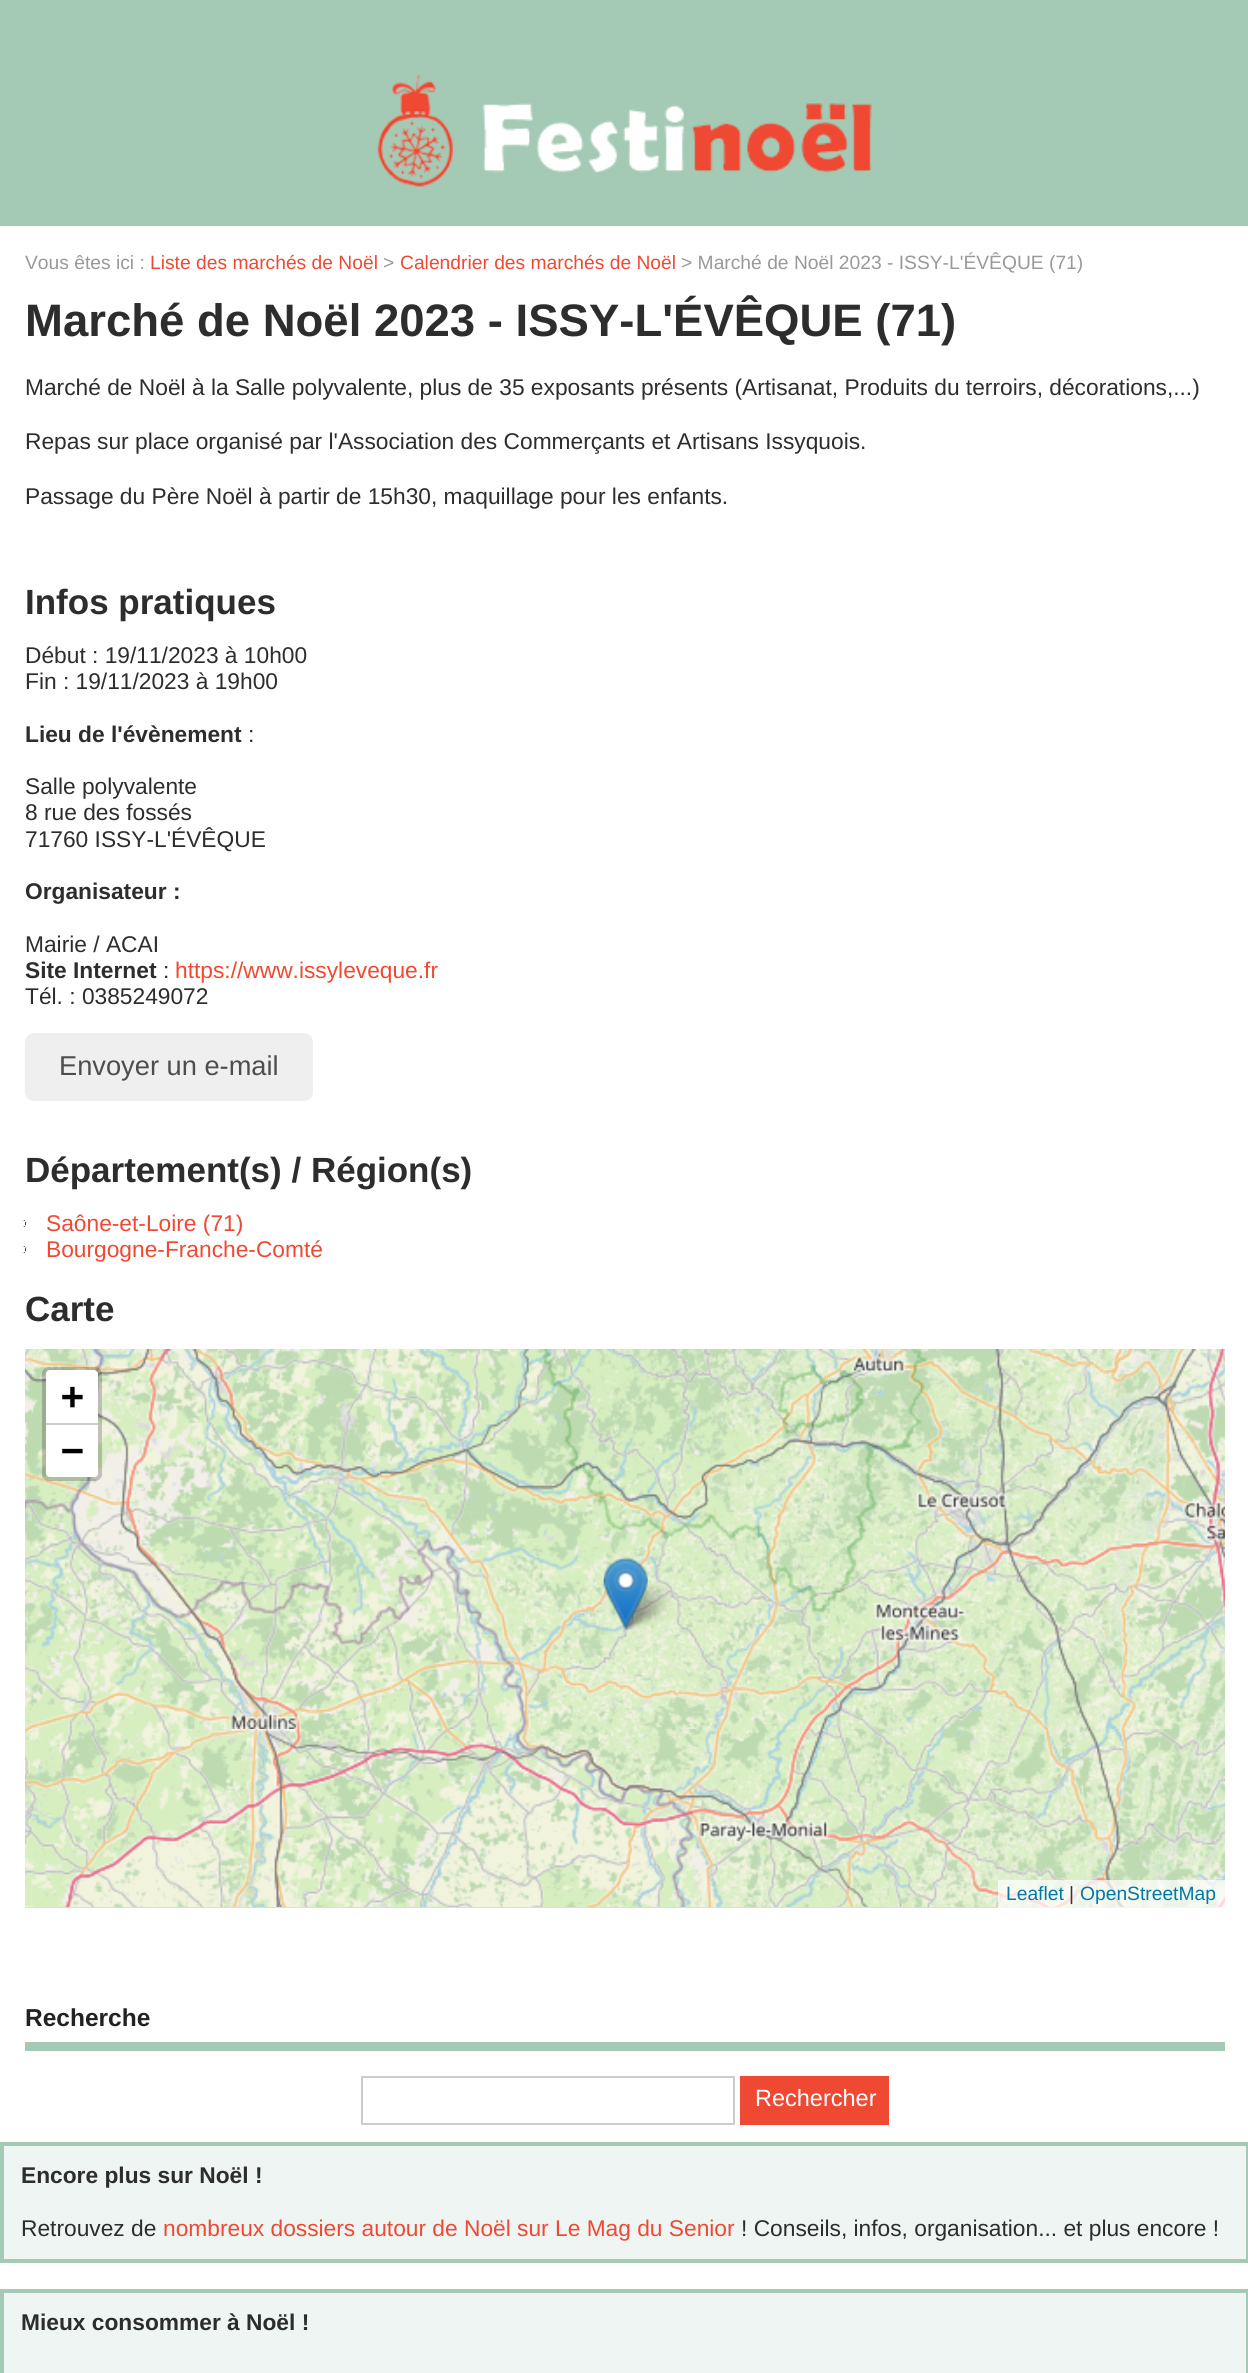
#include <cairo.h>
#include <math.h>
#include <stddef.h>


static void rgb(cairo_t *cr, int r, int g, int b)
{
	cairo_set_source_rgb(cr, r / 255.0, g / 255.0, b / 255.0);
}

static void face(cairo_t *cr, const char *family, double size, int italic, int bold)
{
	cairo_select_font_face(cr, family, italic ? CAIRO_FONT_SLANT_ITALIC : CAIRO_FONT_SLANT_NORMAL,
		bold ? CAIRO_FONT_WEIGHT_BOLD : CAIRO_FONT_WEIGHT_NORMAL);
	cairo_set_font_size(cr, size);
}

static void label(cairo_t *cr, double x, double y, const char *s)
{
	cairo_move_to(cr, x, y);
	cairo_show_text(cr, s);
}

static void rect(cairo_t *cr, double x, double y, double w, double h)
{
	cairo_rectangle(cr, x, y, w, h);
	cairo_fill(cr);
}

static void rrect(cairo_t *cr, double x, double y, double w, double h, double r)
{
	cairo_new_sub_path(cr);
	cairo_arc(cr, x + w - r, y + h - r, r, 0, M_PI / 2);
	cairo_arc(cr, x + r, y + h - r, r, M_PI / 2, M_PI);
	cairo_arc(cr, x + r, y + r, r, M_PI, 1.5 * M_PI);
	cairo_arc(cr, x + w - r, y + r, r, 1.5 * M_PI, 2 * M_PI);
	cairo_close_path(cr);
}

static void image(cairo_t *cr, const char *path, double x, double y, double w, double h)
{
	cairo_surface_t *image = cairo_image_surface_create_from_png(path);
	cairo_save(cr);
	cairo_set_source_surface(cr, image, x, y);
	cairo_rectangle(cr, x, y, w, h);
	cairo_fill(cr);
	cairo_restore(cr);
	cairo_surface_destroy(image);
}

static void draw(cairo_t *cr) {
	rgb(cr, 255, 255, 255);
	cairo_paint(cr);
	rgb(cr, 164, 202, 181);
	rect(cr, 0, 0, 1248, 226);
	image(cr, "image0.png", 377, 74, 495, 113);
	face(cr, "Liberation Sans", 19.25, 0, 0);
	rgb(cr, 153, 153, 153);
	label(cr, 25, 269, "Vous êtes ici :");
	rgb(cr, 239, 73, 51);
	label(cr, 150, 269, "Liste des marchés de Noël");
	rgb(cr, 153, 153, 153);
	label(cr, 383, 269, ">");
	rgb(cr, 239, 73, 51);
	label(cr, 400, 269, "Calendrier des marchés de Noël");
	rgb(cr, 153, 153, 153);
	label(cr, 681, 269, "> Marché de Noël 2023 - ISSY-L'ÉVÊQUE (71)");
	face(cr, "Liberation Sans", 45.5, 0, 1);
	rgb(cr, 45, 45, 45);
	label(cr, 25, 336, "Marché de Noël 2023 - ISSY-L'ÉVÊQUE (71)");
	face(cr, "Liberation Sans", 22.75, 0, 0);
	label(cr, 25, 395, "Marché de Noël à la Salle polyvalente, plus de 35 exposants présents (Artisanat, Produits du terroirs, décorations,...)");
	label(cr, 25, 449, "Repas sur place organisé par l'Association des Commerçants et Artisans Issyquois.");
	label(cr, 25, 504, "Passage du Père Noël à partir de 15h30, maquillage pour les enfants.");
	face(cr, "Liberation Sans", 35, 0, 1);
	label(cr, 25, 614, "Infos pratiques");
	face(cr, "Liberation Sans", 22.75, 0, 0);
	label(cr, 25, 663, "Début : 19/11/2023 à 10h00");
	label(cr, 25, 689, "Fin : 19/11/2023 à 19h00");
	face(cr, "Liberation Sans", 22.75, 0, 1);
	label(cr, 25, 742, "Lieu de l'évènement");
	face(cr, "Liberation Sans", 22.75, 0, 0);
	label(cr, 248, 742, ":");
	label(cr, 25, 794, "Salle polyvalente");
	label(cr, 25, 820, "8 rue des fossés");
	label(cr, 25, 847, "71760 ISSY-L'ÉVÊQUE");
	face(cr, "Liberation Sans", 22.75, 0, 1);
	label(cr, 25, 899, "Organisateur :");
	face(cr, "Liberation Sans", 22.75, 0, 0);
	label(cr, 25, 952, "Mairie / ACAI");
	face(cr, "Liberation Sans", 22.75, 0, 1);
	label(cr, 25, 978, "Site Internet");
	face(cr, "Liberation Sans", 22.75, 0, 0);
	label(cr, 163, 978, ":");
	rgb(cr, 239, 73, 51);
	label(cr, 175, 978, "https://www.issyleveque.fr");
	rgb(cr, 45, 45, 45);
	label(cr, 25, 1004, "Tél. : 0385249072");
	rgb(cr, 239, 239, 239);
	rrect(cr, 25, 1033, 288, 68, 9);
	cairo_fill(cr);
	face(cr, "Liberation Sans", 27.25, 0, 0);
	rgb(cr, 77, 77, 77);
	label(cr, 59, 1075, "Envoyer un e-mail");
	face(cr, "Liberation Sans", 35, 0, 1);
	rgb(cr, 45, 45, 45);
	label(cr, 25, 1182, "Département(s) / Région(s)");
	cairo_new_path(cr);
	cairo_move_to(cr, 25, 1220);
	cairo_line_to(cr, 22.5, 1220);
	cairo_curve_to(cr, 24.5, 1220, 26, 1221.5, 26, 1223.5);
	cairo_curve_to(cr, 26, 1225.5, 24.5, 1227, 22.5, 1227);
	cairo_line_to(cr, 25, 1227);
	cairo_close_path(cr);
	cairo_fill(cr);
	face(cr, "Liberation Sans", 22.75, 0, 0);
	rgb(cr, 239, 73, 51);
	label(cr, 46, 1231, "Saône-et-Loire (71)");
	rgb(cr, 45, 45, 45);
	cairo_new_path(cr);
	cairo_move_to(cr, 25, 1246);
	cairo_line_to(cr, 22.5, 1246);
	cairo_curve_to(cr, 24.5, 1246, 26, 1247.5, 26, 1249.5);
	cairo_curve_to(cr, 26, 1251.5, 24.5, 1253, 22.5, 1253);
	cairo_line_to(cr, 25, 1253);
	cairo_close_path(cr);
	cairo_fill(cr);
	rgb(cr, 239, 73, 51);
	label(cr, 46, 1257, "Bourgogne-Franche-Comté");
	face(cr, "Liberation Sans", 35, 0, 1);
	rgb(cr, 45, 45, 45);
	label(cr, 25, 1321, "Carte");
	rgb(cr, 221, 221, 221);
	rect(cr, 25, 1349, 1200, 559);
	image(cr, "image2.png", 380, 1349, 448, 380);
	image(cr, "image1.png", 25, 1349, 356, 380);
	image(cr, "image3.png", 828, 1349, 397, 380);
	image(cr, "image5.png", 380, 1729, 448, 178);
	image(cr, "image4.png", 25, 1729, 356, 178);
	image(cr, "image6.png", 828, 1729, 397, 178);
	image(cr, "image8.png", 619, 1580, 52, 50);
	image(cr, "image7.png", 603, 1557, 45, 73);
	rrect(cr, 44, 1369, 56, 110, 5);
	cairo_set_source_rgba(cr, 0, 0, 0, 0.2);
	cairo_set_line_width(cr, 4);
	cairo_stroke(cr);
	rgb(cr, 255, 255, 255);
	cairo_new_path(cr);
	cairo_move_to(cr, 50, 1370);
	cairo_line_to(cr, 94, 1370);
	cairo_curve_to(cr, 96, 1370, 98, 1372, 98, 1374);
	cairo_line_to(cr, 98, 1425);
	cairo_line_to(cr, 46, 1425);
	cairo_line_to(cr, 46, 1374);
	cairo_curve_to(cr, 46, 1372, 48, 1370, 50, 1370);
	cairo_close_path(cr);
	cairo_fill(cr);
	rgb(cr, 204, 204, 204);
	rect(cr, 46, 1423, 52, 2);
	face(cr, "DejaVu Sans Mono", 38, 0, 1);
	rgb(cr, 0, 0, 0);
	label(cr, 61, 1409, "+");
	rgb(cr, 255, 255, 255);
	cairo_new_path(cr);
	cairo_move_to(cr, 46, 1425);
	cairo_line_to(cr, 98, 1425);
	cairo_line_to(cr, 98, 1473);
	cairo_curve_to(cr, 98, 1475, 96, 1477, 94, 1477);
	cairo_line_to(cr, 50, 1477);
	cairo_curve_to(cr, 48, 1477, 46, 1475, 46, 1473);
	cairo_close_path(cr);
	cairo_fill(cr);
	rgb(cr, 0, 0, 0);
	label(cr, 61, 1463, "−");
	cairo_set_source_rgba(cr, 1, 1, 1, 0.7);
	rect(cr, 998, 1880, 227, 28);
	face(cr, "Liberation Sans", 19.25, 0, 0);
	rgb(cr, 0, 120, 168);
	label(cr, 1006, 1900, "Leaflet");
	rgb(cr, 51, 51, 51);
	label(cr, 1069, 1900, "|");
	rgb(cr, 0, 120, 168);
	label(cr, 1080, 1900, "OpenStreetMap");
	rgb(cr, 164, 202, 181);
	rect(cr, 25, 2042, 1200, 9);
	face(cr, "Liberation Sans", 24.5, 0, 1);
	rgb(cr, 34, 34, 34);
	label(cr, 25, 2026, "Recherche");
	cairo_rectangle(cr, 362, 2077, 372, 47);
	rgb(cr, 204, 204, 204);
	cairo_set_line_width(cr, 2);
	cairo_stroke(cr);
	rgb(cr, 239, 73, 51);
	rect(cr, 740, 2076, 149, 49);
	face(cr, "Liberation Sans", 23.5, 0, 0);
	rgb(cr, 255, 255, 255);
	label(cr, 755, 2106, "Rechercher");
	rgb(cr, 238, 245, 242);
	cairo_rectangle(cr, 2, 2144, 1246, 117);
	cairo_fill_preserve(cr);
	rgb(cr, 164, 202, 181);
	cairo_set_line_width(cr, 4);
	cairo_stroke(cr);
	face(cr, "Liberation Sans", 22.75, 0, 1);
	rgb(cr, 45, 45, 45);
	label(cr, 21, 2183, "Encore plus sur Noël !");
	face(cr, "Liberation Sans", 22.75, 0, 0);
	label(cr, 21, 2236, "Retrouvez de");
	rgb(cr, 239, 73, 51);
	label(cr, 163, 2236, "nombreux dossiers autour de Noël sur Le Mag du Senior");
	rgb(cr, 45, 45, 45);
	label(cr, 741, 2236, "! Conseils, infos, organisation... et plus encore !");
	rgb(cr, 238, 245, 242);
	cairo_rectangle(cr, 2, 2291, 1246, 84);
	cairo_fill_preserve(cr);
	rgb(cr, 164, 202, 181);
	cairo_stroke(cr);
	face(cr, "Liberation Sans", 22.75, 0, 1);
	rgb(cr, 45, 45, 45);
	label(cr, 21, 2330, "Mieux consommer à Noël !");
}

int main(void) {
	cairo_surface_t *surface = cairo_image_surface_create(CAIRO_FORMAT_RGB24, 1248, 2373);
	cairo_t *cr = cairo_create(surface);
	cairo_font_options_t *options = cairo_font_options_create();
	cairo_font_options_set_hint_metrics(options, CAIRO_HINT_METRICS_OFF);
	cairo_font_options_set_hint_style(options, CAIRO_HINT_STYLE_NONE);
	cairo_set_font_options(cr, options);
	cairo_set_miter_limit(cr, 4);
	draw(cr);
	cairo_surface_write_to_png(surface, "render.png");
	cairo_font_options_destroy(options);
	cairo_destroy(cr);
	cairo_surface_destroy(surface);
	return 0;
}
